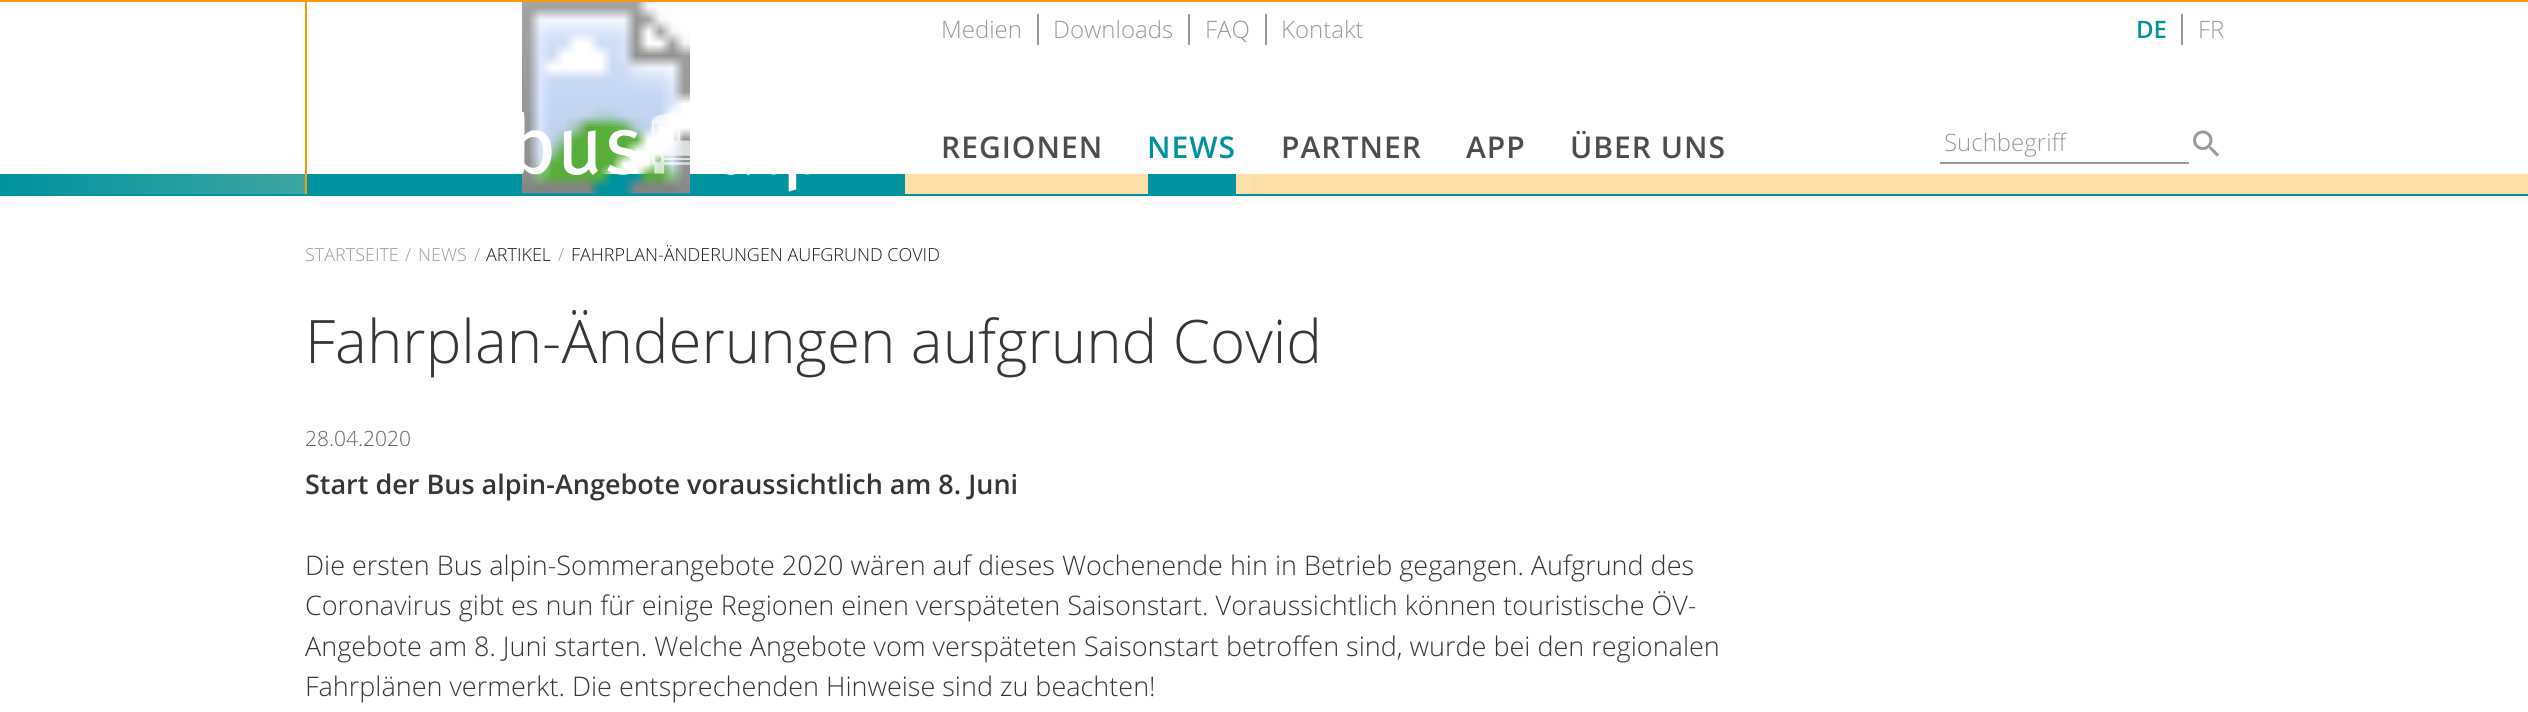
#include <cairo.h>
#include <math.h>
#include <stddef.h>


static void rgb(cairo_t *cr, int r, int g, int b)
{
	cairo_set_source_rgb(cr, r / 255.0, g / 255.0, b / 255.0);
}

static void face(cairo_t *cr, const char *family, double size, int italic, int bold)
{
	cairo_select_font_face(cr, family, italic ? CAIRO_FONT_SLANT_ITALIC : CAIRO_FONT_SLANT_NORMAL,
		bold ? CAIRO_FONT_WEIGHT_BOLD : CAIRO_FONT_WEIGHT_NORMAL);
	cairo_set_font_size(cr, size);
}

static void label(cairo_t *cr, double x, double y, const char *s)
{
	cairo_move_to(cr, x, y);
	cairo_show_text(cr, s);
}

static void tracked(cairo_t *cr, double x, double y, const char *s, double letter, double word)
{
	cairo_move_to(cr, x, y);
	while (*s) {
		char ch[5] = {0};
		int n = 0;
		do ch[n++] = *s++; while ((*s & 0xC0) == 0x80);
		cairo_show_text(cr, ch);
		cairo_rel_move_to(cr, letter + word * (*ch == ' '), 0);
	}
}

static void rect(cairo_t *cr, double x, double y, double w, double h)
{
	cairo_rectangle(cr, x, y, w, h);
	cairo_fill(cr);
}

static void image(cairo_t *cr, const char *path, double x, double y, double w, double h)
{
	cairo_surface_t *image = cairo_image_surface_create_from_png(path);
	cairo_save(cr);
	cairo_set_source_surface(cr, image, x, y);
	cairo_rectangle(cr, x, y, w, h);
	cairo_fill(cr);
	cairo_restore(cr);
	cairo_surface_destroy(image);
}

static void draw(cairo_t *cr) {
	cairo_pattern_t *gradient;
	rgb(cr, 255, 255, 255);
	cairo_paint(cr);
	rgb(cr, 255, 153, 0);
	rect(cr, 0, 0, 2528, 2);
	rgb(cr, 0, 147, 159);
	rect(cr, 0, 194, 2528, 2);
	gradient = cairo_pattern_create_linear(0, 184, 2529, 184);
	cairo_pattern_add_color_stop_rgba(gradient, 0, 0, 0.576, 0.624, 1);
	cairo_pattern_add_color_stop_rgba(gradient, 0.5, 0.996, 0.878, 0.659, 1);
	cairo_set_source(cr, gradient);
	cairo_pattern_destroy(gradient);
	rect(cr, 0, 174, 2528, 20);
	rgb(cr, 255, 153, 0);
	rect(cr, 305, 2, 2, 192);
	rgb(cr, 0, 147, 159);
	rect(cr, 307, 174, 598, 20);
	image(cr, "image0.png", 522, 1, 289, 193);
	face(cr, "Open Sans Light", 24, 0, 0);
	rgb(cr, 153, 153, 153);
	label(cr, 941, 38, "Medien");
	rect(cr, 1037, 14, 2, 31);
	label(cr, 1053, 38, "Downloads");
	rect(cr, 1188, 14, 2, 31);
	label(cr, 1205, 38, "FAQ");
	rect(cr, 1265, 14, 2, 31);
	label(cr, 1281, 38, "Kontakt");
	rect(cr, 2181, 14, 2, 31);
	face(cr, "Open Sans SemiBold", 24, 0, 0);
	rgb(cr, 0, 147, 159);
	label(cr, 2136, 38, "DE");
	face(cr, "Open Sans Light", 24, 0, 0);
	rgb(cr, 153, 153, 153);
	label(cr, 2198, 38, "FR");
	face(cr, "Open Sans SemiBold", 30, 0, 0);
	rgb(cr, 77, 77, 77);
	tracked(cr, 941, 158, "REGIONEN", 1, 0);
	rgb(cr, 254, 224, 168);
	rect(cr, 905, 174, 347, 20);
	rgb(cr, 0, 147, 159);
	rect(cr, 1148, 174, 88, 20);
	tracked(cr, 1147, 158, "NEWS", 1, 0);
	rgb(cr, 77, 77, 77);
	tracked(cr, 1281, 158, "PARTNER", 1, 0);
	tracked(cr, 1466, 158, "APP", 1, 0);
	tracked(cr, 1570, 158, "ÜBER UNS", 1, 0);
	rgb(cr, 153, 153, 153);
	rect(cr, 1940, 162, 249, 2);
	face(cr, "Open Sans Light", 24, 0, 0);
	label(cr, 1944, 151, "Suchbegriff");
	image(cr, "image1.png", 2193, 130, 27, 27);
	face(cr, "Open Sans Light", 18, 0, 0);
	label(cr, 305, 261, "STARTSEITE");
	label(cr, 405, 261, "/");
	label(cr, 418, 261, "NEWS");
	label(cr, 474, 261, "/");
	rgb(cr, 26, 23, 27);
	label(cr, 486, 261, "ARTIKEL");
	rgb(cr, 153, 153, 153);
	label(cr, 558, 261, "/");
	rgb(cr, 26, 23, 27);
	label(cr, 571, 261, "FAHRPLAN-ÄNDERUNGEN AUFGRUND COVID");
	face(cr, "Open Sans Light", 60, 0, 0);
	rgb(cr, 55, 53, 53);
	label(cr, 305, 363, "Fahrplan-Änderungen aufgrund Covid");
	face(cr, "Open Sans Light", 21, 0, 0);
	rgb(cr, 102, 102, 102);
	label(cr, 305, 446, "28.04.2020");
	face(cr, "Open Sans SemiBold", 27, 0, 0);
	rgb(cr, 55, 53, 53);
	label(cr, 305, 494, "Start der Bus alpin-Angebote voraussichtlich am 8. Juni");
	face(cr, "Open Sans Light", 27, 0, 0);
	label(cr, 305, 575, "Die ersten Bus alpin-Sommerangebote 2020 wären auf dieses Wochenende hin in Betrieb gegangen. Aufgrund des");
	label(cr, 305, 615, "Coronavirus gibt es nun für einige Regionen einen verspäteten Saisonstart. Voraussichtlich können touristische ÖV-");
	label(cr, 305, 656, "Angebote am 8. Juni starten. Welche Angebote vom verspäteten Saisonstart betroffen sind, wurde bei den regionalen");
	label(cr, 305, 696, "Fahrplänen vermerkt. Die entsprechenden Hinweise sind zu beachten!");
}

int main(void) {
	cairo_surface_t *surface = cairo_image_surface_create(CAIRO_FORMAT_RGB24, 2528, 712);
	cairo_t *cr = cairo_create(surface);
	cairo_font_options_t *options = cairo_font_options_create();
	cairo_font_options_set_hint_metrics(options, CAIRO_HINT_METRICS_OFF);
	cairo_font_options_set_hint_style(options, CAIRO_HINT_STYLE_NONE);
	cairo_set_font_options(cr, options);
	cairo_set_miter_limit(cr, 4);
	draw(cr);
	cairo_surface_write_to_png(surface, "render.png");
	cairo_font_options_destroy(options);
	cairo_destroy(cr);
	cairo_surface_destroy(surface);
	return 0;
}
